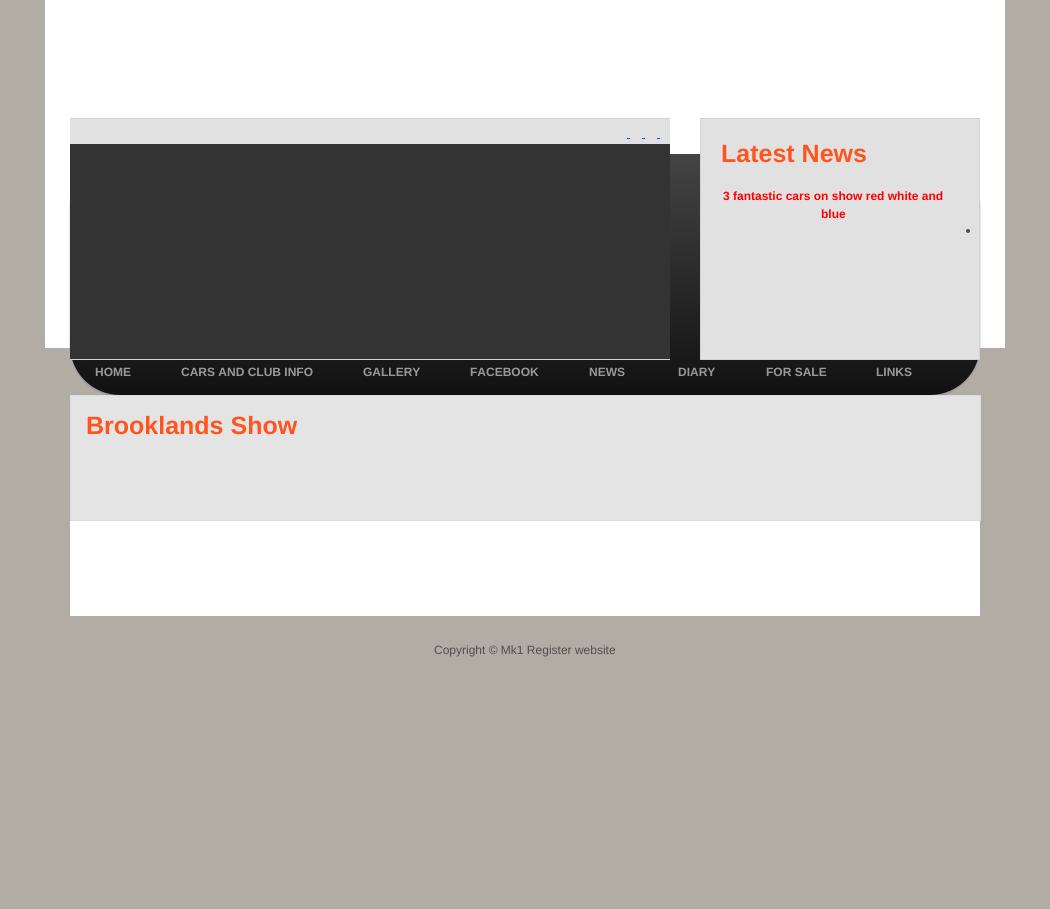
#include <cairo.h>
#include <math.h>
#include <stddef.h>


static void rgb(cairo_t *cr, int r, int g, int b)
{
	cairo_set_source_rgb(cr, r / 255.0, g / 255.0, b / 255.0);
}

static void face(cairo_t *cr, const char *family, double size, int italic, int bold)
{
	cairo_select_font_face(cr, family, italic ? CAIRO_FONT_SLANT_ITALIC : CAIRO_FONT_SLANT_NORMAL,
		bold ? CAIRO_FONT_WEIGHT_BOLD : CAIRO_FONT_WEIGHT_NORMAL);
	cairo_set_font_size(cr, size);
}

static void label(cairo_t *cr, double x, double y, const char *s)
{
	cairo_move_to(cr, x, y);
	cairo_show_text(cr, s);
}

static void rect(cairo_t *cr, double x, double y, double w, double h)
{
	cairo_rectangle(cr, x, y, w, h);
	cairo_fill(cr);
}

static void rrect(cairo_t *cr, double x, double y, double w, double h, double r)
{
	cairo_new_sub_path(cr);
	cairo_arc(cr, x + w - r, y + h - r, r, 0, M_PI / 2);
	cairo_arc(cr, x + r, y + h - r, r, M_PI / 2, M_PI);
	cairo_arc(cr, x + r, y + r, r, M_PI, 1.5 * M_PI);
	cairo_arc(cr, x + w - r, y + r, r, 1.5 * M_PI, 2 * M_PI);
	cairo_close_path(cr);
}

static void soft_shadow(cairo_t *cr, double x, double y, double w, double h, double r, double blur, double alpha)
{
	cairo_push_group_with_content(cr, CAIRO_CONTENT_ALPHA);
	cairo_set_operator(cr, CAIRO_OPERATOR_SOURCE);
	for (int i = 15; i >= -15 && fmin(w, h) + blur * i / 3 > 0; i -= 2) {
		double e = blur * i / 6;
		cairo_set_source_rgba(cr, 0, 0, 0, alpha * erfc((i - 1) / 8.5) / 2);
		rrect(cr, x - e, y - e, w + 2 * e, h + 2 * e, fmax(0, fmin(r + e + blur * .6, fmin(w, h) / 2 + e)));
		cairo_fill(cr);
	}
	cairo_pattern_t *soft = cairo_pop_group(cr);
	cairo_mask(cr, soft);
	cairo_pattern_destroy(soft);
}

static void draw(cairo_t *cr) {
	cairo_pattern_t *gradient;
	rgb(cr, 178, 173, 164);
	cairo_paint(cr);
	rgb(cr, 255, 255, 255);
	rect(cr, 45, 0, 960, 348);
	rgb(cr, 225, 225, 225);
	rect(cr, 70, 119, 600, 25);
	rgb(cr, 210, 210, 210);
	rect(cr, 70, 118, 600, 1);
	rgb(cr, 156, 156, 156);
	soft_shadow(cr, 70, 156, 910, 241, 50, 0.5, 1);
	gradient = cairo_pattern_create_linear(525, 154, 525, 395);
	cairo_pattern_add_color_stop_rgba(gradient, 0, 0.267, 0.267, 0.267, 1);
	cairo_pattern_add_color_stop_rgba(gradient, 1, 0.067, 0.067, 0.067, 1);
	cairo_set_source(cr, gradient);
	cairo_pattern_destroy(gradient);
	rrect(cr, 70, 154, 910, 241, 50);
	cairo_fill(cr);
	rgb(cr, 210, 210, 210);
	rect(cr, 70, 359, 600, 1);
	rgb(cr, 5, 99, 193);
	rect(cr, 627, 138, 3, 1);
	rect(cr, 642, 138, 3, 1);
	rect(cr, 657, 138, 3, 1);
	rgb(cr, 51, 51, 51);
	rect(cr, 70, 144, 600, 215);
	rgb(cr, 225, 225, 225);
	cairo_rectangle(cr, 700.5, 118.5, 279, 241);
	cairo_fill_preserve(cr);
	rgb(cr, 210, 210, 210);
	cairo_set_line_width(cr, 1);
	cairo_stroke(cr);
	face(cr, "Liberation Sans", 25, 0, 1);
	rgb(cr, 254, 85, 30);
	label(cr, 721, 162, "Latest News");
	face(cr, "Liberation Sans", 12, 0, 1);
	rgb(cr, 255, 0, 0);
	label(cr, 723, 200, "3 fantastic cars on show red white and");
	label(cr, 821, 218, "blue");
	rgb(cr, 78, 78, 78);
	cairo_new_path(cr);
	cairo_arc(cr, 968, 231, 2, 0, 2 * M_PI);
	cairo_fill(cr);
	rgb(cr, 153, 153, 153);
	label(cr, 95, 376, "HOME");
	label(cr, 181, 376, "CARS AND CLUB INFO");
	label(cr, 363, 376, "GALLERY");
	label(cr, 470, 376, "FACEBOOK");
	label(cr, 589, 376, "NEWS");
	label(cr, 678, 376, "DIARY");
	label(cr, 766, 376, "FOR SALE");
	label(cr, 876, 376, "LINKS");
	rgb(cr, 255, 255, 255);
	rect(cr, 70, 521, 910, 95);
	rgb(cr, 228, 228, 228);
	cairo_rectangle(cr, 70.5, 395.5, 910, 125);
	cairo_fill_preserve(cr);
	rgb(cr, 219, 219, 219);
	cairo_stroke(cr);
	face(cr, "Liberation Sans", 25, 0, 1);
	rgb(cr, 254, 85, 30);
	label(cr, 86, 434, "Brooklands Show");
	face(cr, "Liberation Sans", 12, 0, 0);
	rgb(cr, 78, 78, 78);
	label(cr, 434, 654, "Copyright © Mk1 Register website");
}

int main(void) {
	cairo_surface_t *surface = cairo_image_surface_create(CAIRO_FORMAT_RGB24, 1050, 909);
	cairo_t *cr = cairo_create(surface);
	cairo_font_options_t *options = cairo_font_options_create();
	cairo_font_options_set_hint_metrics(options, CAIRO_HINT_METRICS_OFF);
	cairo_font_options_set_hint_style(options, CAIRO_HINT_STYLE_NONE);
	cairo_set_font_options(cr, options);
	cairo_set_miter_limit(cr, 4);
	draw(cr);
	cairo_surface_write_to_png(surface, "render.png");
	cairo_font_options_destroy(options);
	cairo_destroy(cr);
	cairo_surface_destroy(surface);
	return 0;
}
